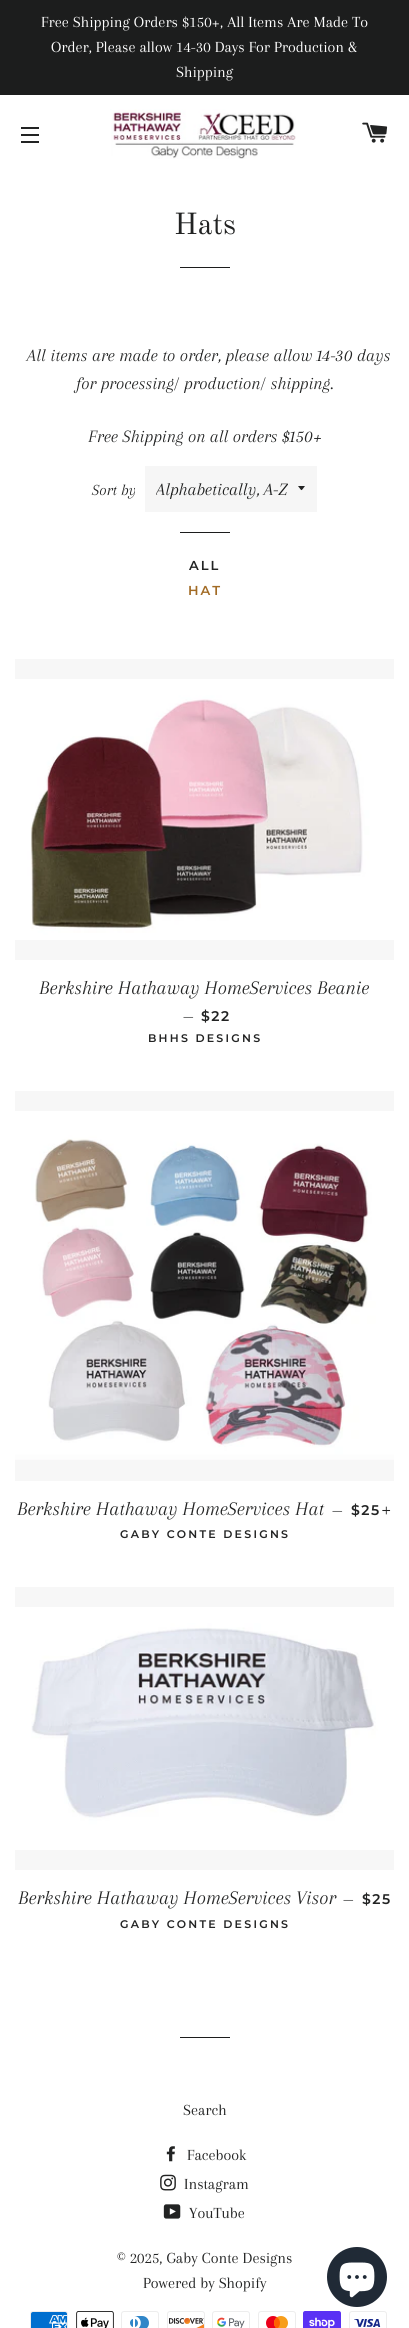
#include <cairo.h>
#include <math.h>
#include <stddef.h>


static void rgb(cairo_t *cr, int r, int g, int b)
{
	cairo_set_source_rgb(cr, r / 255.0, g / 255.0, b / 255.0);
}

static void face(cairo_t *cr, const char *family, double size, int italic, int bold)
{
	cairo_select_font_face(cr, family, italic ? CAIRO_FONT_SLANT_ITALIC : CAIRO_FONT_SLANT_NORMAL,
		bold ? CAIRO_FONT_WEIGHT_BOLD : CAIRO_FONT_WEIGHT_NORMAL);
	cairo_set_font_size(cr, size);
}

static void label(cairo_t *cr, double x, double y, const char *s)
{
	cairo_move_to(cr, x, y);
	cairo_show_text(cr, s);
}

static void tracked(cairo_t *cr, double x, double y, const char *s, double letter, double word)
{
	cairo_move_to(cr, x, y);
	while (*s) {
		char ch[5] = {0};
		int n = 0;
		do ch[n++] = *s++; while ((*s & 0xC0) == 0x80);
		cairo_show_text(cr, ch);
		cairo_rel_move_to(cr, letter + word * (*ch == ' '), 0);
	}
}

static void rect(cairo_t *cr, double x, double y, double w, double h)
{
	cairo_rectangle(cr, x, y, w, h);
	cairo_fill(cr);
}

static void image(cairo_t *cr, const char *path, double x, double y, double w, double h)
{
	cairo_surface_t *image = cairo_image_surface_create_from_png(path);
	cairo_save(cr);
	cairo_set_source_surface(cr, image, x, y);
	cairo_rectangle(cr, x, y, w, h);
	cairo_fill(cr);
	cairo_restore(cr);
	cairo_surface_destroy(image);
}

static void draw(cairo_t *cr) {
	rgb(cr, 255, 255, 255);
	cairo_paint(cr);
	rgb(cr, 28, 29, 29);
	rect(cr, 0, 0, 409, 95);
	face(cr, "Arapey", 16, 0, 0);
	rgb(cr, 255, 255, 255);
	label(cr, 41, 27, "Free Shipping Orders $150+, All Items Are Made To");
	label(cr, 51, 52, "Order, Please allow 14-30 Days For Production &");
	label(cr, 176, 77, "Shipping");
	rgb(cr, 34, 35, 35);
	rect(cr, 21, 127, 18, 2);
	rect(cr, 21, 134, 18, 2);
	rect(cr, 21, 141, 18, 2);
	image(cr, "image0.png", 110, 109, 186, 50);
	image(cr, "image1.png", 362, 122, 26, 21);
	face(cr, "Old Standard TT", 30, 0, 0);
	label(cr, 174, 234, "Hats");
	rgb(cr, 28, 29, 29);
	rect(cr, 180, 267, 50, 1);
	face(cr, "Arapey", 18, 1, 0);
	rgb(cr, 34, 35, 35);
	label(cr, 27, 361, "All items are made to order, please allow 14-30 days");
	label(cr, 76, 389, "for processing/ production/ shipping.");
	label(cr, 88, 442, "Free Shipping on all orders $150+");
	face(cr, "Arapey", 16, 1, 0);
	label(cr, 92, 495, "Sort by");
	rgb(cr, 246, 246, 246);
	rect(cr, 145, 466, 172, 46);
	rgb(cr, 34, 35, 35);
	cairo_new_path(cr);
	cairo_move_to(cr, 298, 486);
	cairo_curve_to(cr, 302.5, 491.5, 300.5, 491.5, 305, 486);
	cairo_close_path(cr);
	cairo_fill(cr);
	cairo_save(cr);
	cairo_rectangle(cr, 156, 475, 132, 28);
	cairo_clip(cr);
	face(cr, "Arapey", 18, 1, 0);
	rgb(cr, 28, 29, 29);
	label(cr, 156, 495, "Alphabetically, A-Z");
	cairo_restore(cr);
	rgb(cr, 28, 29, 29);
	rect(cr, 180, 532, 50, 1);
	face(cr, "Montserrat SemiBold", 13, 0, 0);
	rgb(cr, 34, 35, 35);
	tracked(cr, 189, 570, "ALL", 2, 0);
	rgb(cr, 162, 107, 37);
	tracked(cr, 188, 595, "HAT", 2, 0);
	rgb(cr, 247, 247, 247);
	rect(cr, 15, 659, 379, 301);
	image(cr, "image2.png", 15, 679, 379, 261);
	face(cr, "Arapey", 20, 1, 0);
	rgb(cr, 34, 35, 35);
	label(cr, 39, 994, "Berkshire Hathaway HomeServices Beanie");
	face(cr, "Arapey", 16, 0, 0);
	label(cr, 183, 1021, "—");
	face(cr, "Montserrat SemiBold", 14, 0, 0);
	tracked(cr, 201, 1021, "$22", 1.5, 0);
	face(cr, "Montserrat SemiBold", 11, 0, 0);
	tracked(cr, 148, 1042, "BHHS DESIGNS", 2.25, 0);
	rgb(cr, 247, 247, 247);
	rect(cr, 15, 1091, 379, 390);
	image(cr, "image3.png", 15, 1111, 379, 349);
	face(cr, "Arapey", 20, 1, 0);
	rgb(cr, 34, 35, 35);
	label(cr, 17, 1515, "Berkshire Hathaway HomeServices Hat");
	face(cr, "Arapey", 16, 0, 0);
	label(cr, 332, 1515, "—");
	face(cr, "Montserrat SemiBold", 14, 0, 0);
	tracked(cr, 351, 1515, "$25", 1.5, 0);
	image(cr, "image4.png", 382, 1506, 9, 9);
	face(cr, "Montserrat SemiBold", 11, 0, 0);
	tracked(cr, 120, 1538, "GABY CONTE DESIGNS", 2.25, 0);
	rgb(cr, 247, 247, 247);
	rect(cr, 15, 1587, 379, 283);
	image(cr, "image5.png", 15, 1607, 379, 243);
	face(cr, "Arapey", 20, 1, 0);
	rgb(cr, 34, 35, 35);
	label(cr, 18, 1904, "Berkshire Hathaway HomeServices Visor");
	face(cr, "Arapey", 16, 0, 0);
	label(cr, 343, 1904, "—");
	face(cr, "Montserrat SemiBold", 14, 0, 0);
	tracked(cr, 362, 1904, "$25", 1.5, 0);
	face(cr, "Montserrat SemiBold", 11, 0, 0);
	tracked(cr, 120, 1928, "GABY CONTE DESIGNS", 2.25, 0);
	rgb(cr, 28, 29, 29);
	rect(cr, 180, 2037, 50, 1);
	face(cr, "Arapey", 16, 0, 0);
	rgb(cr, 34, 35, 35);
	label(cr, 183, 2115, "Search");
	image(cr, "image6.png", 166, 2146, 9, 16);
	label(cr, 187, 2160, "Facebook");
	image(cr, "image7.png", 160, 2174, 16, 17);
	label(cr, 184, 2189, "Instagram");
	image(cr, "image8.png", 163, 2204, 18, 15);
	label(cr, 189, 2218, "YouTube");
	label(cr, 117, 2263, "© 2025, Gaby Conte Designs");
	label(cr, 143, 2288, "Powered by Shopify");
	image(cr, "image9.png", 30, 2311, 38, 17);
	image(cr, "image10.png", 76, 2311, 38, 17);
	image(cr, "image11.png", 121, 2311, 38, 17);
	image(cr, "image12.png", 167, 2311, 38, 17);
	image(cr, "image13.png", 212, 2311, 38, 17);
	image(cr, "image14.png", 258, 2311, 38, 17);
	image(cr, "image15.png", 303, 2311, 38, 17);
	image(cr, "image16.png", 349, 2311, 38, 17);
	rgb(cr, 32, 42, 54);
	cairo_arc(cr, 357, 2277, 30, 0, 2 * M_PI);
	cairo_fill(cr);
	image(cr, "image17.png", 339, 2262, 36, 36);
}

int main(void) {
	cairo_surface_t *surface = cairo_image_surface_create(CAIRO_FORMAT_RGB24, 409, 2328);
	cairo_t *cr = cairo_create(surface);
	cairo_font_options_t *options = cairo_font_options_create();
	cairo_font_options_set_hint_metrics(options, CAIRO_HINT_METRICS_OFF);
	cairo_font_options_set_hint_style(options, CAIRO_HINT_STYLE_NONE);
	cairo_set_font_options(cr, options);
	cairo_set_miter_limit(cr, 4);
	draw(cr);
	cairo_surface_write_to_png(surface, "render.png");
	cairo_font_options_destroy(options);
	cairo_destroy(cr);
	cairo_surface_destroy(surface);
	return 0;
}
